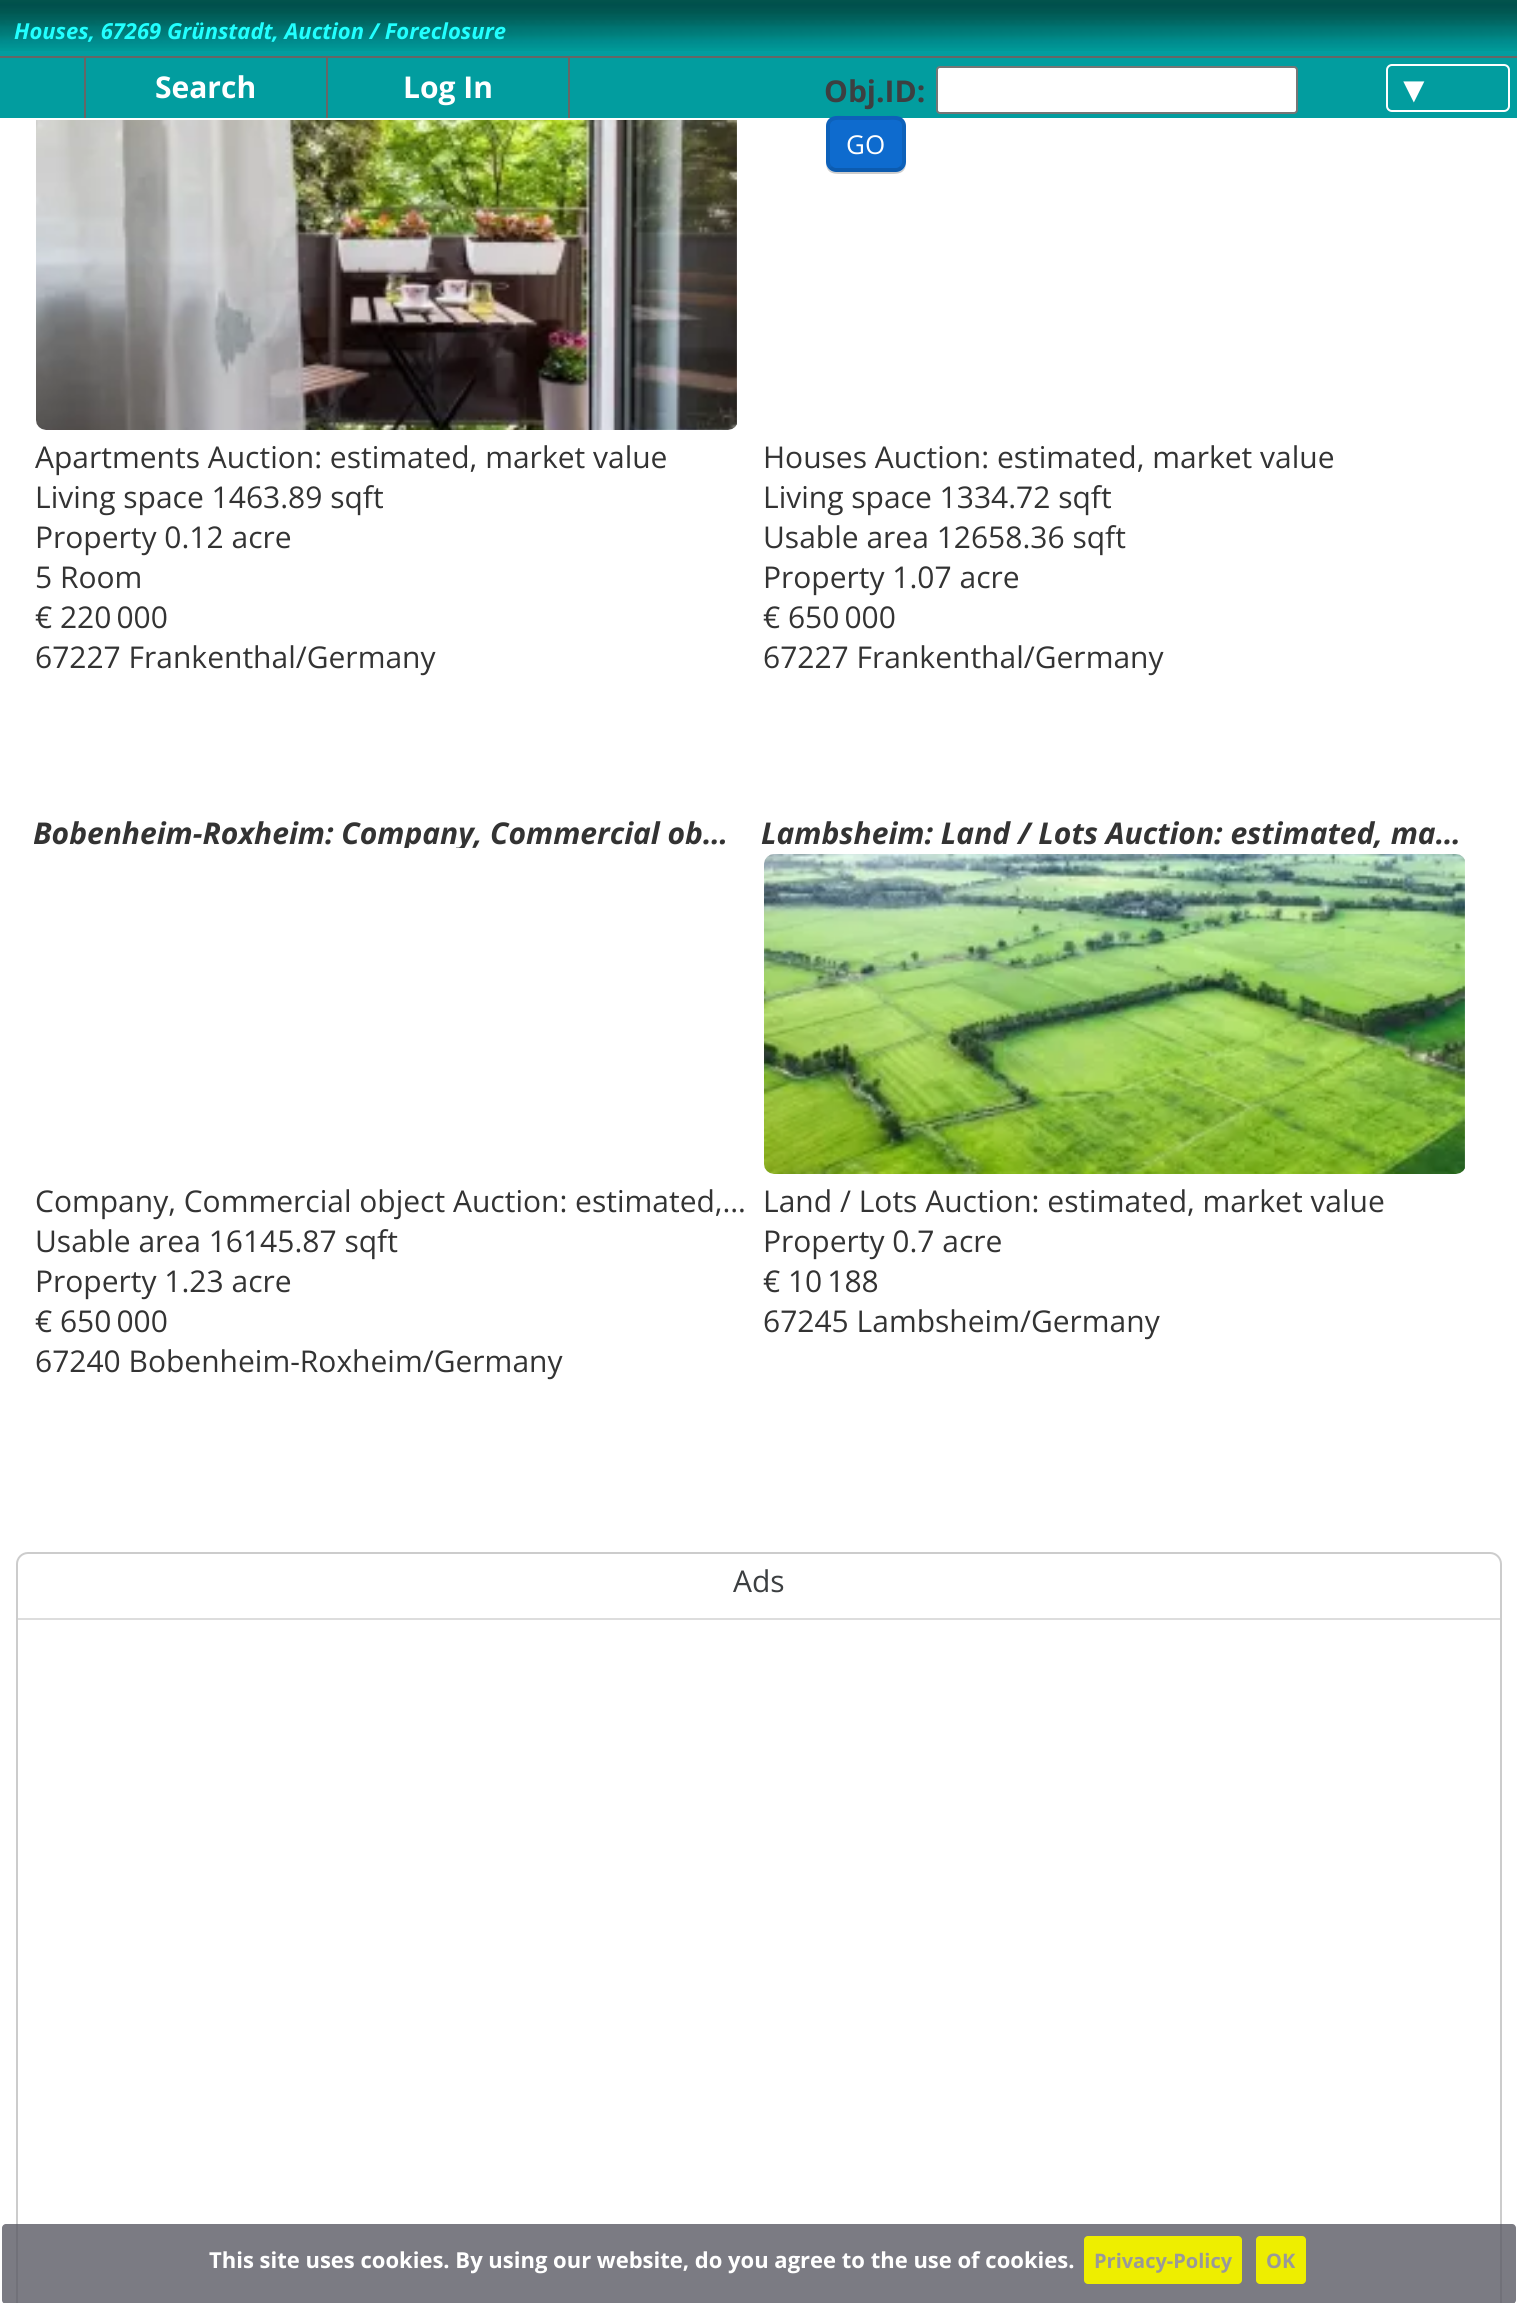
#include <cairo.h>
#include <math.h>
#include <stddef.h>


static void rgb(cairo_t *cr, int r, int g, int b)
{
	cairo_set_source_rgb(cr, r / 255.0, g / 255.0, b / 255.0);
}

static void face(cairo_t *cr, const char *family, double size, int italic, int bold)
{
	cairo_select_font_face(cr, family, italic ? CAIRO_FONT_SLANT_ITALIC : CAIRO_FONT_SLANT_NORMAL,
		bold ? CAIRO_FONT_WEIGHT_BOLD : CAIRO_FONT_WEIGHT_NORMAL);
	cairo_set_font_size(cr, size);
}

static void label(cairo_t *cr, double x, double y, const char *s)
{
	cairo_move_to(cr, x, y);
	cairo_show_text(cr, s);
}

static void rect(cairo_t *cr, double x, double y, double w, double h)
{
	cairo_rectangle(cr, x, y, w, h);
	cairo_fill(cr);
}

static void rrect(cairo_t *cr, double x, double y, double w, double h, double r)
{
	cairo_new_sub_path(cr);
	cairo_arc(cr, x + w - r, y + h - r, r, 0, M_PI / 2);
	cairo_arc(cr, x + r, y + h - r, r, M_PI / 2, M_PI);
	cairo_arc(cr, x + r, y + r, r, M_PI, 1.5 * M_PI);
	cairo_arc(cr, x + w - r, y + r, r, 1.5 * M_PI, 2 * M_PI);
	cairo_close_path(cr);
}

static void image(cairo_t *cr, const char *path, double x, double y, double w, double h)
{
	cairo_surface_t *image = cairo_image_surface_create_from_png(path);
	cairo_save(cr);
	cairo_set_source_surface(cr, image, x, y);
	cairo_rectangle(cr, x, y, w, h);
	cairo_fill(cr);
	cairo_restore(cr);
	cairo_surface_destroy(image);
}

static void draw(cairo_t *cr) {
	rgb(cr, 255, 255, 255);
	cairo_paint(cr);
	rgb(cr, 2, 157, 159);
	rect(cr, 0, 51, 1517, 67);
	image(cr, "image0.png", 0, 0, 1517, 51);
	face(cr, "Open Sans", 22, 1, 1);
	rgb(cr, 34, 255, 255);
	label(cr, 14, 39, "Houses, 67269 Grünstadt, Auction / Foreclosure");
	rgb(cr, 102, 102, 102);
	rect(cr, 0, 56, 1517, 2);
	rect(cr, 326, 58, 2, 60);
	rect(cr, 84, 58, 2, 60);
	face(cr, "Open Sans", 30, 0, 1);
	rgb(cr, 255, 255, 255);
	label(cr, 155, 98, "Search");
	rgb(cr, 102, 102, 102);
	rect(cr, 568, 58, 2, 60);
	rgb(cr, 255, 255, 255);
	label(cr, 403, 98, "Log In");
	rgb(cr, 60, 63, 65);
	label(cr, 824, 102, "Obj.ID:");
	rgb(cr, 255, 255, 255);
	rrect(cr, 937, 67, 360, 46, 3);
	cairo_fill_preserve(cr);
	rgb(cr, 118, 118, 118);
	cairo_stroke(cr);
	rgb(cr, 204, 204, 204);
	cairo_new_path(cr);
	cairo_move_to(cr, 826, 162);
	cairo_curve_to(cr, 826, 175, 835, 174, 846, 174);
	cairo_line_to(cr, 886, 174);
	cairo_curve_to(cr, 897, 174, 906, 175, 906, 162);
	cairo_curve_to(cr, 906, 168, 902, 172, 896, 172);
	cairo_line_to(cr, 836, 172);
	cairo_curve_to(cr, 830, 172, 826, 168, 826, 162);
	cairo_close_path(cr);
	cairo_fill(cr);
	rgb(cr, 14, 107, 206);
	rrect(cr, 826, 116, 80, 56, 10);
	cairo_fill(cr);
	cairo_new_path(cr);
	cairo_move_to(cr, 901.5, 167.5);
	cairo_curve_to(cr, 900, 169, 898, 170, 896, 170);
	cairo_line_to(cr, 836, 170);
	cairo_curve_to(cr, 834, 170, 832, 169, 830.5, 167.5);
	cairo_set_source_rgba(cr, 0, 0, 0, 0.15);
	cairo_set_line_width(cr, 4);
	cairo_stroke(cr);
	cairo_new_path(cr);
	cairo_move_to(cr, 830.5, 167.5);
	cairo_curve_to(cr, 827, 164.5, 828, 160, 828, 156);
	cairo_line_to(cr, 828, 124.5);
	cairo_curve_to(cr, 830, 116, 840, 118, 846, 118);
	cairo_line_to(cr, 886, 118);
	cairo_curve_to(cr, 892, 118, 902, 116, 904, 124.5);
	cairo_line_to(cr, 904, 156);
	cairo_curve_to(cr, 904, 160, 905, 164.5, 901.5, 167.5);
	cairo_set_source_rgba(cr, 0, 0, 0, 0.1);
	cairo_stroke(cr);
	face(cr, "Open Sans", 26, 0, 0);
	rgb(cr, 255, 255, 255);
	label(cr, 846, 154, "GO");
	rrect(cr, 1387, 65, 122, 46, 5);
	cairo_set_line_width(cr, 2);
	cairo_stroke(cr);
	face(cr, "Liberation Sans", 36, 0, 0);
	label(cr, 1396, 102, "▼");
	image(cr, "image1.png", 36, 120, 701, 310);
	face(cr, "Open Sans", 30, 0, 0);
	rgb(cr, 51, 51, 51);
	label(cr, 35, 468, "Apartments Auction: estimated, market value");
	label(cr, 35, 508, "Living space 1463.89 sqft");
	label(cr, 35, 548, "Property 0.12 acre");
	label(cr, 35, 588, "5 Room");
	label(cr, 35, 628, "€ 220 000");
	label(cr, 35, 668, "67227 Frankenthal/Germany");
	label(cr, 763, 468, "Houses Auction: estimated, market value");
	label(cr, 763, 508, "Living space 1334.72 sqft");
	label(cr, 763, 548, "Usable area 12658.36 sqft");
	label(cr, 763, 588, "Property 1.07 acre");
	label(cr, 763, 628, "€ 650 000");
	label(cr, 763, 668, "67227 Frankenthal/Germany");
	cairo_save(cr);
	cairo_rectangle(cr, 34, 812, 702, 36);
	cairo_clip(cr);
	face(cr, "Open Sans", 30, 1, 1);
	label(cr, 33, 844, "Bobenheim-Roxheim: Company, Commercial ob…");
	cairo_restore(cr);
	label(cr, 35, 1212, "Company, Commercial object Auction: estimated,…");
	label(cr, 35, 1252, "Usable area 16145.87 sqft");
	label(cr, 35, 1292, "Property 1.23 acre");
	label(cr, 35, 1332, "€ 650 000");
	label(cr, 35, 1372, "67240 Bobenheim-Roxheim/Germany");
	face(cr, "Open Sans", 30, 1, 1);
	label(cr, 761, 844, "Lambsheim: Land / Lots Auction: estimated, ma…");
	image(cr, "image2.png", 764, 854, 701, 320);
	face(cr, "Open Sans", 30, 0, 0);
	label(cr, 763, 1212, "Land / Lots Auction: estimated, market value");
	label(cr, 763, 1252, "Property 0.7 acre");
	label(cr, 763, 1292, "€ 10 188");
	label(cr, 763, 1332, "67245 Lambsheim/Germany");
	rrect(cr, 17, 1553, 1484, 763, 11);
	rgb(cr, 204, 204, 204);
	cairo_stroke(cr);
	rgb(cr, 221, 221, 221);
	rect(cr, 18, 1618, 1482, 2);
	rgb(cr, 60, 63, 65);
	label(cr, 733, 1592, "Ads");
	cairo_set_source_rgba(cr, 0.353, 0.353, 0.392, 0.8);
	rrect(cr, 2, 2224, 1514, 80, 4);
	cairo_fill(cr);
	face(cr, "Open Sans", 22, 0, 1);
	rgb(cr, 255, 255, 255);
	label(cr, 209, 2268, "This site uses cookies. By using our website, do you agree to the use of cookies.");
	rgb(cr, 238, 238, 0);
	rrect(cr, 1084, 2236, 158, 48, 4);
	cairo_fill(cr);
	face(cr, "Open Sans", 20, 0, 1);
	rgb(cr, 153, 153, 153);
	label(cr, 1094, 2268, "Privacy-Policy");
	rgb(cr, 238, 238, 0);
	rrect(cr, 1256, 2236, 50, 48, 4);
	cairo_fill(cr);
	rgb(cr, 153, 153, 153);
	label(cr, 1266, 2268, "OK");
}

int main(void) {
	cairo_surface_t *surface = cairo_image_surface_create(CAIRO_FORMAT_RGB24, 1517, 2303);
	cairo_t *cr = cairo_create(surface);
	cairo_font_options_t *options = cairo_font_options_create();
	cairo_font_options_set_hint_metrics(options, CAIRO_HINT_METRICS_OFF);
	cairo_font_options_set_hint_style(options, CAIRO_HINT_STYLE_NONE);
	cairo_set_font_options(cr, options);
	cairo_set_miter_limit(cr, 4);
	draw(cr);
	cairo_surface_write_to_png(surface, "render.png");
	cairo_font_options_destroy(options);
	cairo_destroy(cr);
	cairo_surface_destroy(surface);
	return 0;
}
